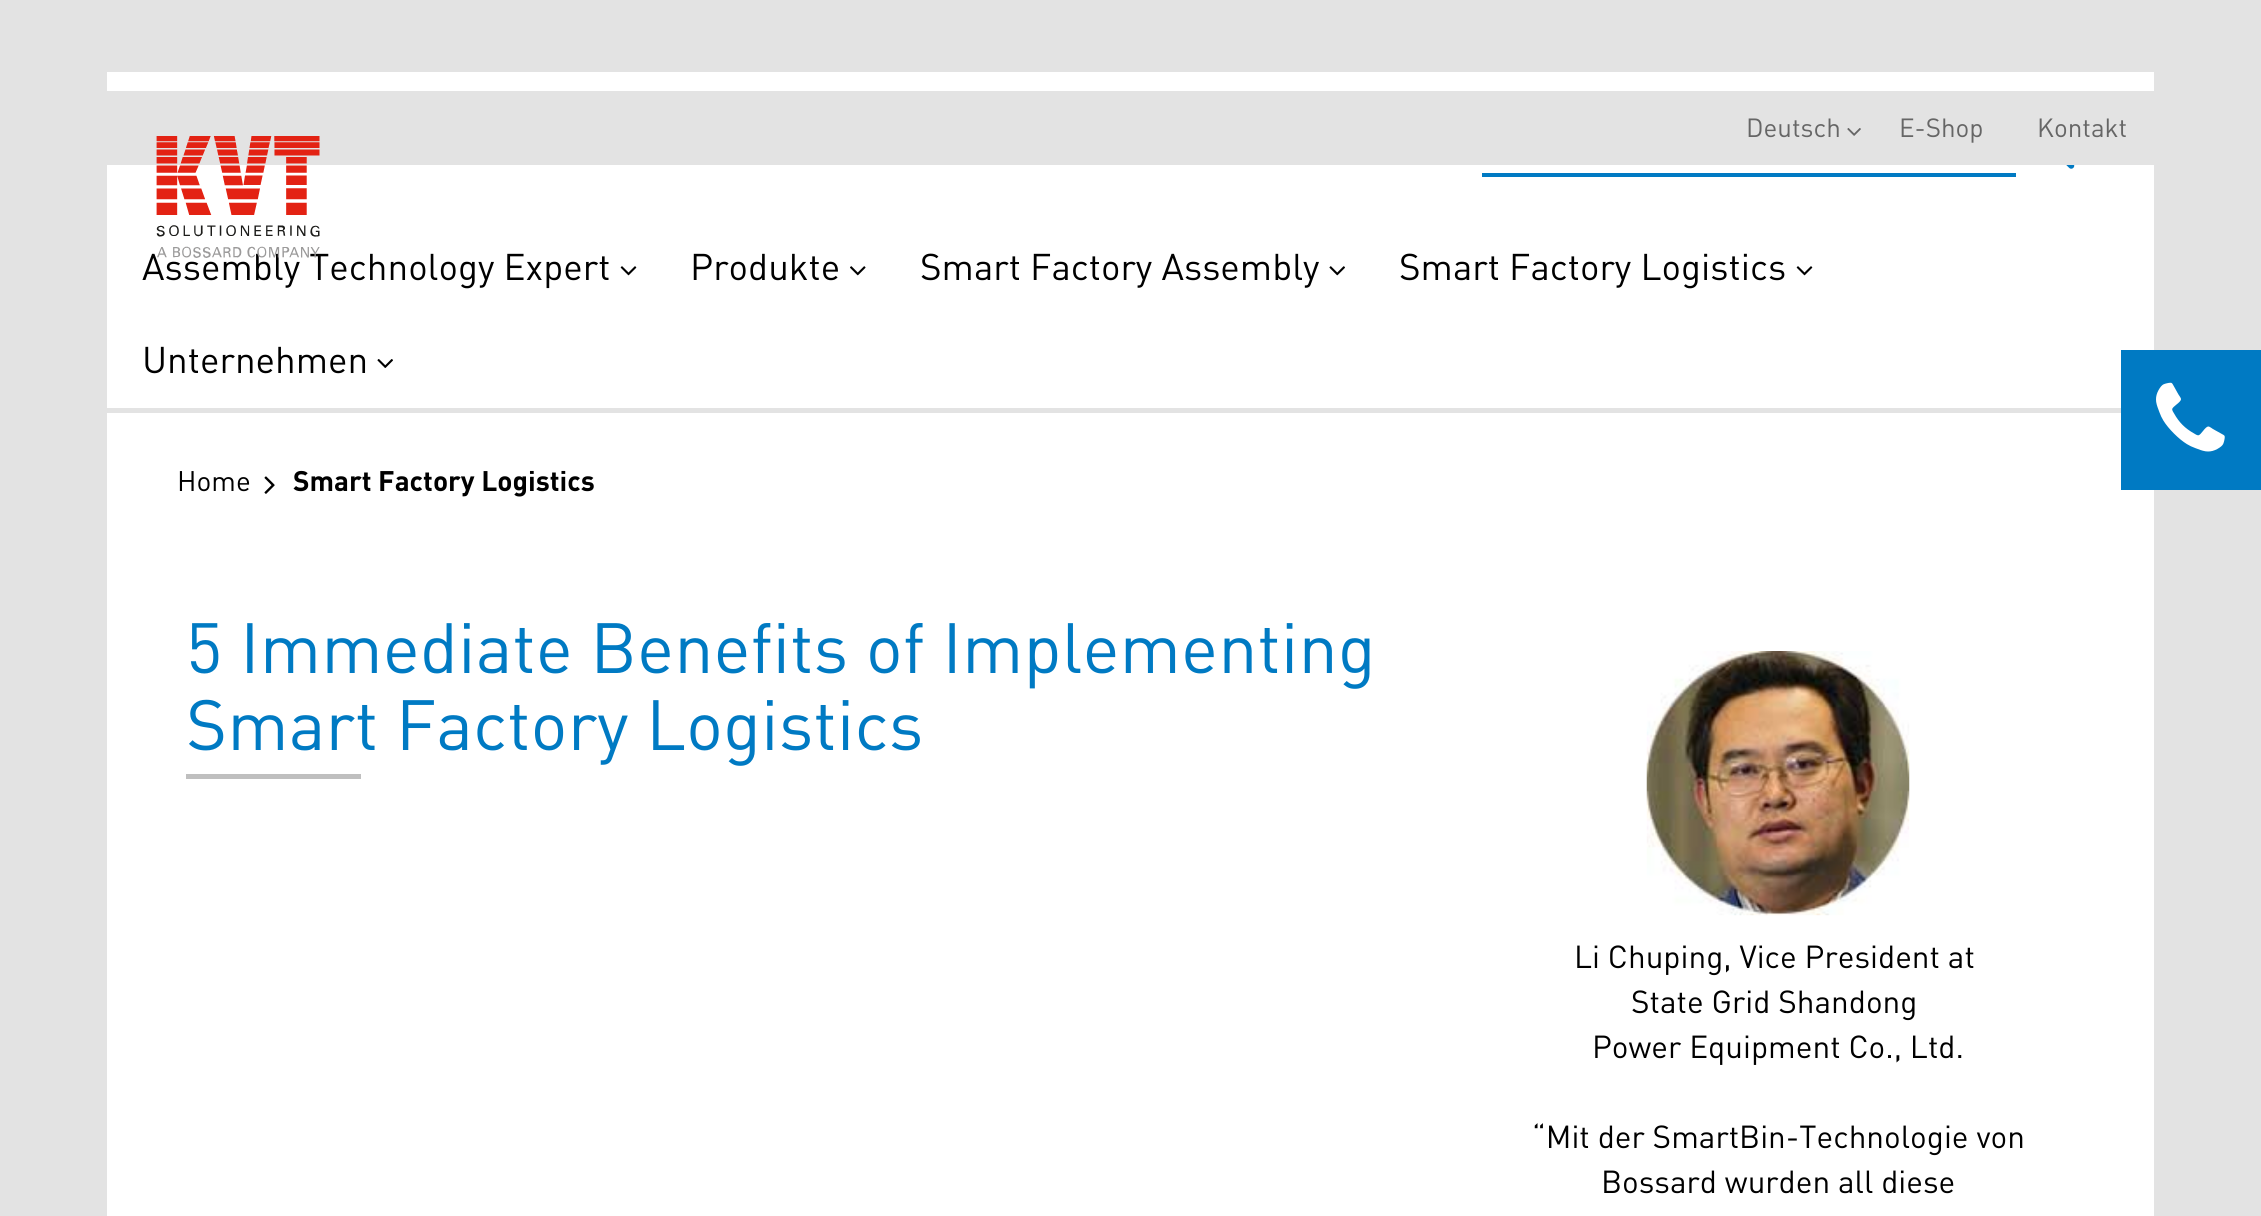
#include <cairo.h>
#include <math.h>
#include <stddef.h>


static void rgb(cairo_t *cr, int r, int g, int b)
{
	cairo_set_source_rgb(cr, r / 255.0, g / 255.0, b / 255.0);
}

static void face(cairo_t *cr, const char *family, double size, int italic, int bold)
{
	cairo_select_font_face(cr, family, italic ? CAIRO_FONT_SLANT_ITALIC : CAIRO_FONT_SLANT_NORMAL,
		bold ? CAIRO_FONT_WEIGHT_BOLD : CAIRO_FONT_WEIGHT_NORMAL);
	cairo_set_font_size(cr, size);
}

static void label(cairo_t *cr, double x, double y, const char *s)
{
	cairo_move_to(cr, x, y);
	cairo_show_text(cr, s);
}

static void rect(cairo_t *cr, double x, double y, double w, double h)
{
	cairo_rectangle(cr, x, y, w, h);
	cairo_fill(cr);
}

static void image(cairo_t *cr, const char *path, double x, double y, double w, double h)
{
	cairo_surface_t *image = cairo_image_surface_create_from_png(path);
	cairo_save(cr);
	cairo_set_source_surface(cr, image, x, y);
	cairo_rectangle(cr, x, y, w, h);
	cairo_fill(cr);
	cairo_restore(cr);
	cairo_surface_destroy(image);
}

static void draw(cairo_t *cr) {
	rgb(cr, 227, 227, 227);
	cairo_paint(cr);
	rgb(cr, 255, 255, 255);
	rect(cr, 107, 72, 2047, 336);
	rgb(cr, 227, 227, 227);
	rect(cr, 107, 91, 2047, 74);
	face(cr, "DIN", 26, 0, 0);
	rgb(cr, 102, 102, 102);
	label(cr, 1746, 137, "Deutsch");
	image(cr, "image0.png", 1847, 128, 14, 8);
	label(cr, 1899, 137, "E-Shop");
	label(cr, 2037, 137, "Kontakt");
	face(cr, "DIN", 36.75, 0, 0);
	rgb(cr, 0, 0, 0);
	label(cr, 142, 280, "Assembly Technology Expert");
	image(cr, "image1.png", 156, 136, 164, 122);
	image(cr, "image2.png", 2066, 165, 9, 4);
	rgb(cr, 0, 122, 195);
	rect(cr, 1482, 173, 534, 4);
	image(cr, "image3.png", 620, 266, 17, 10);
	rgb(cr, 0, 0, 0);
	label(cr, 690, 280, "Produkte");
	image(cr, "image4.png", 850, 266, 16, 10);
	label(cr, 920, 280, "Smart Factory Assembly");
	image(cr, "image5.png", 1329, 266, 16, 10);
	label(cr, 1399, 280, "Smart Factory Logistics");
	image(cr, "image3.png", 1796, 266, 17, 10);
	label(cr, 142, 373, "Unternehmen");
	image(cr, "image6.png", 377, 359, 16, 9);
	rgb(cr, 255, 255, 255);
	rect(cr, 107, 413, 2047, 803);
	rgb(cr, 0, 122, 195);
	rect(cr, 2121, 350, 140, 140);
	image(cr, "image7.png", 2156, 382, 69, 70);
	face(cr, "DIN", 28, 0, 0);
	rgb(cr, 0, 0, 0);
	label(cr, 177, 491, "Home");
	image(cr, "image8.png", 264, 476, 11, 18);
	face(cr, "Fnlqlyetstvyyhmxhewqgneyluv", 28, 0, 1);
	label(cr, 293, 491, "Smart Factory Logistics");
	face(cr, "DIN", 70, 0, 0);
	rgb(cr, 0, 122, 195);
	label(cr, 186, 673, "5 Immediate Benefits of Implementing");
	label(cr, 186, 750, "Smart Factory Logistics");
	rgb(cr, 191, 191, 191);
	rect(cr, 186, 774, 175, 5);
	image(cr, "image9.png", 1646, 651, 264, 265);
	face(cr, "DIN", 31.5, 0, 0);
	rgb(cr, 0, 0, 0);
	label(cr, 1574, 968, "Li Chuping, Vice President at");
	label(cr, 1631, 1013, "State Grid Shandong");
	label(cr, 1592, 1058, "Power Equipment Co., Ltd.");
	label(cr, 1532, 1148, "“Mit der SmartBin-Technologie von");
	label(cr, 1601, 1193, "Bossard wurden all diese");
}

int main(void) {
	cairo_surface_t *surface = cairo_image_surface_create(CAIRO_FORMAT_RGB24, 2261, 1216);
	cairo_t *cr = cairo_create(surface);
	cairo_font_options_t *options = cairo_font_options_create();
	cairo_font_options_set_hint_metrics(options, CAIRO_HINT_METRICS_OFF);
	cairo_font_options_set_hint_style(options, CAIRO_HINT_STYLE_NONE);
	cairo_set_font_options(cr, options);
	cairo_set_miter_limit(cr, 4);
	draw(cr);
	cairo_surface_write_to_png(surface, "render.png");
	cairo_font_options_destroy(options);
	cairo_destroy(cr);
	cairo_surface_destroy(surface);
	return 0;
}
